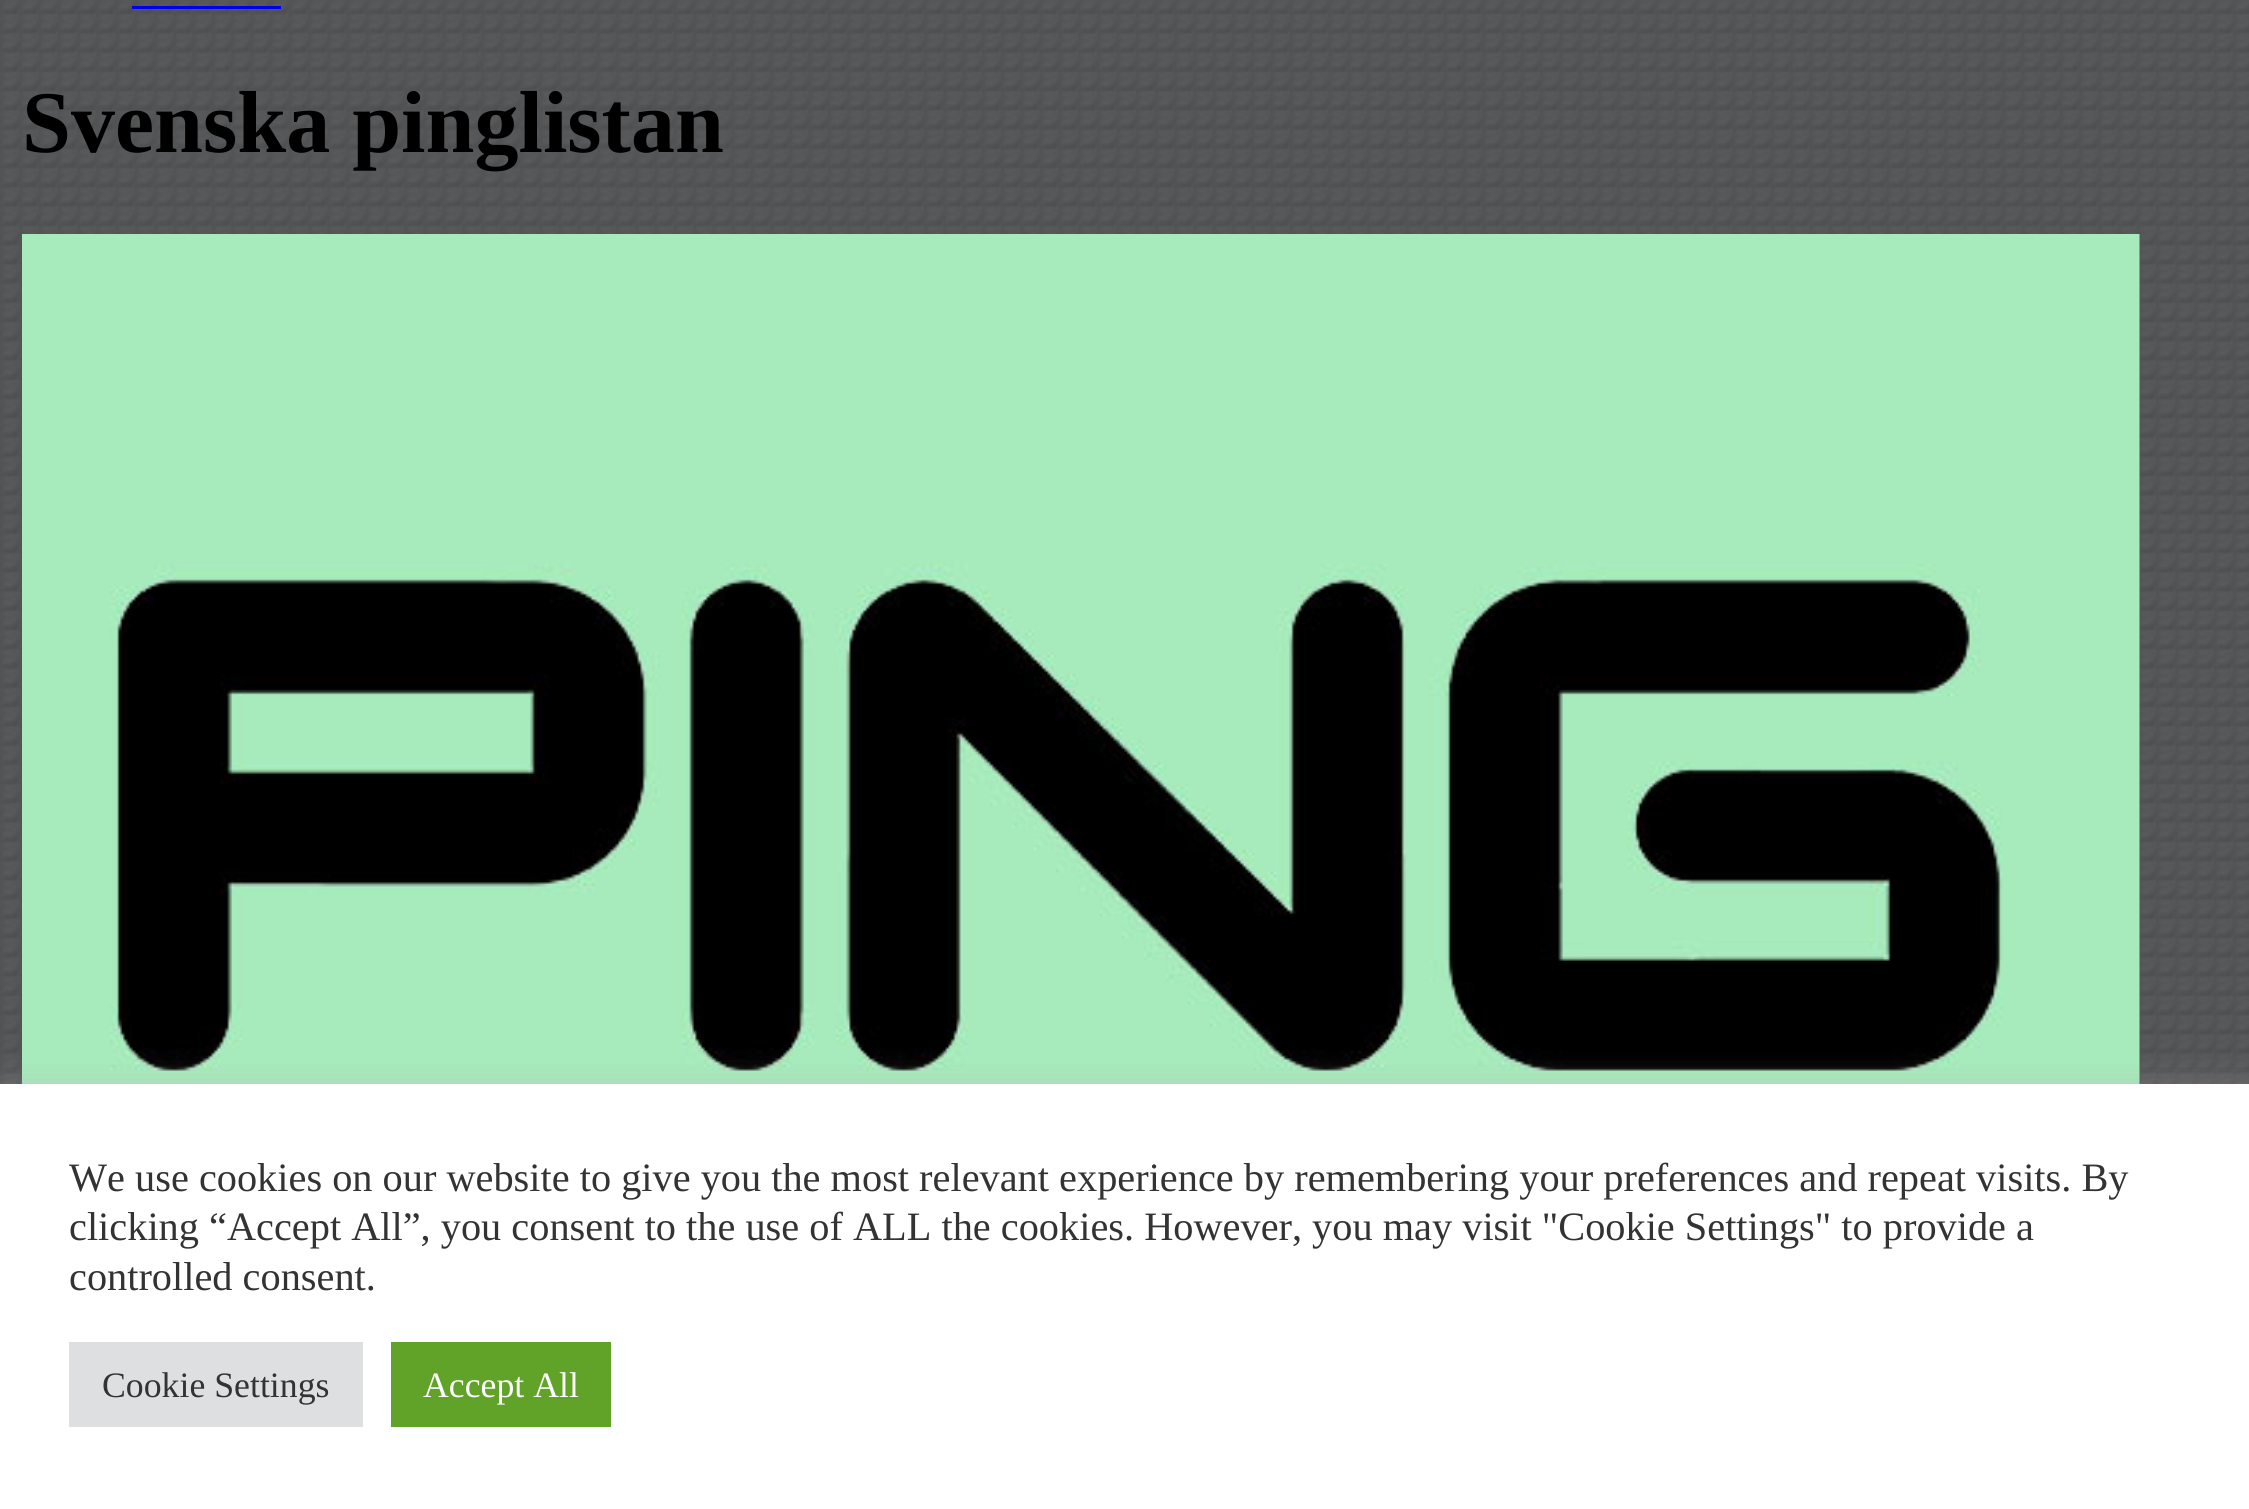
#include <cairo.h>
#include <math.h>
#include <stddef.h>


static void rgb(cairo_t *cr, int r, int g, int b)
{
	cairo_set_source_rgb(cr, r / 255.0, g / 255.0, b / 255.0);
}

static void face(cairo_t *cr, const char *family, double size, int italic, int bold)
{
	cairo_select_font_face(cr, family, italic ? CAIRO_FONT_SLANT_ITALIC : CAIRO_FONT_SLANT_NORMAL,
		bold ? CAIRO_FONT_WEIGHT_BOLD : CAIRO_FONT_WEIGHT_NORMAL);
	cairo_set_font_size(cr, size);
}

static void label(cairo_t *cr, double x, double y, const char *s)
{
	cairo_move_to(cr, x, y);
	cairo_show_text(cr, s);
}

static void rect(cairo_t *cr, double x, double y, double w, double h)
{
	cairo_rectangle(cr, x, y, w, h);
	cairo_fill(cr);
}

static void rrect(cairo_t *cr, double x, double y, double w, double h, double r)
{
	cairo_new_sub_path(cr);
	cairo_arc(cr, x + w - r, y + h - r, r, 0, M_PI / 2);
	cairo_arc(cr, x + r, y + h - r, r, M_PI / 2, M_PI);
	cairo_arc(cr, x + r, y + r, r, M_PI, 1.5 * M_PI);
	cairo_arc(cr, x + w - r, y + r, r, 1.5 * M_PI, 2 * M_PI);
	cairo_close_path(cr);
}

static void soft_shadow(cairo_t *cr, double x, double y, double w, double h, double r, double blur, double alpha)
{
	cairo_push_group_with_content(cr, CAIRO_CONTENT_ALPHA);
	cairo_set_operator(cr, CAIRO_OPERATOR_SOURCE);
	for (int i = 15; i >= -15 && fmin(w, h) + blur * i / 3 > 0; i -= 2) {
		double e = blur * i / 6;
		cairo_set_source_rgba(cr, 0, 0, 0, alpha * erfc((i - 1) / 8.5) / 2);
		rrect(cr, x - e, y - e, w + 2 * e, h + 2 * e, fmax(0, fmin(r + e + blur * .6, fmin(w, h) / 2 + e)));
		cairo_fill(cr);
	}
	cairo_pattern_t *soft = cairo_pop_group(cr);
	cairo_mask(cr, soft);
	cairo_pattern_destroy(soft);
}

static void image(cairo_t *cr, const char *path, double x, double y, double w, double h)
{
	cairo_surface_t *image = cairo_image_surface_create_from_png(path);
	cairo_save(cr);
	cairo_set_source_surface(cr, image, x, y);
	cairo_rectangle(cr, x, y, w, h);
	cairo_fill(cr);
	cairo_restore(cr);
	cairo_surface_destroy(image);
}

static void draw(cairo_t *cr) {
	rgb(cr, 255, 255, 255);
	cairo_paint(cr);
	image(cr, "image0.png", 0, 0, 2249, 1084);
	rgb(cr, 0, 0, 238);
	rect(cr, 132, 6, 149, 3);
	face(cr, "Liberation Serif", 88, 0, 1);
	rgb(cr, 0, 0, 0);
	label(cr, 22, 152, "Svenska pinglistan");
	image(cr, "image1.png", 22, 234, 2118, 850);
	rgb(cr, 172, 171, 171);
	soft_shadow(cr, 0, 1081, 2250, 426, 0, 14, 0.3);
	rgb(cr, 255, 255, 255);
	rect(cr, 0, 1084, 2249, 425);
	face(cr, "Liberation Serif", 40.33, 0, 0);
	rgb(cr, 51, 51, 51);
	label(cr, 69, 1191, "We use cookies on our website to give you the most relevant experience by remembering your preferences and repeat visits. By");
	label(cr, 69, 1240, "clicking “Accept All”, you consent to the use of ALL the cookies. However, you may visit \"Cookie Settings\" to provide a");
	label(cr, 69, 1290, "controlled consent.");
	rgb(cr, 222, 223, 224);
	rect(cr, 69, 1342, 294, 85);
	face(cr, "Liberation Serif", 35.75, 0, 0);
	rgb(cr, 51, 51, 51);
	label(cr, 102, 1397, "Cookie Settings");
	rgb(cr, 97, 162, 41);
	rect(cr, 391, 1342, 220, 85);
	rgb(cr, 255, 255, 255);
	label(cr, 423, 1397, "Accept All");
}

int main(void) {
	cairo_surface_t *surface = cairo_image_surface_create(CAIRO_FORMAT_RGB24, 2249, 1509);
	cairo_t *cr = cairo_create(surface);
	cairo_font_options_t *options = cairo_font_options_create();
	cairo_font_options_set_hint_metrics(options, CAIRO_HINT_METRICS_OFF);
	cairo_font_options_set_hint_style(options, CAIRO_HINT_STYLE_NONE);
	cairo_set_font_options(cr, options);
	cairo_set_miter_limit(cr, 4);
	draw(cr);
	cairo_surface_write_to_png(surface, "render.png");
	cairo_font_options_destroy(options);
	cairo_destroy(cr);
	cairo_surface_destroy(surface);
	return 0;
}
